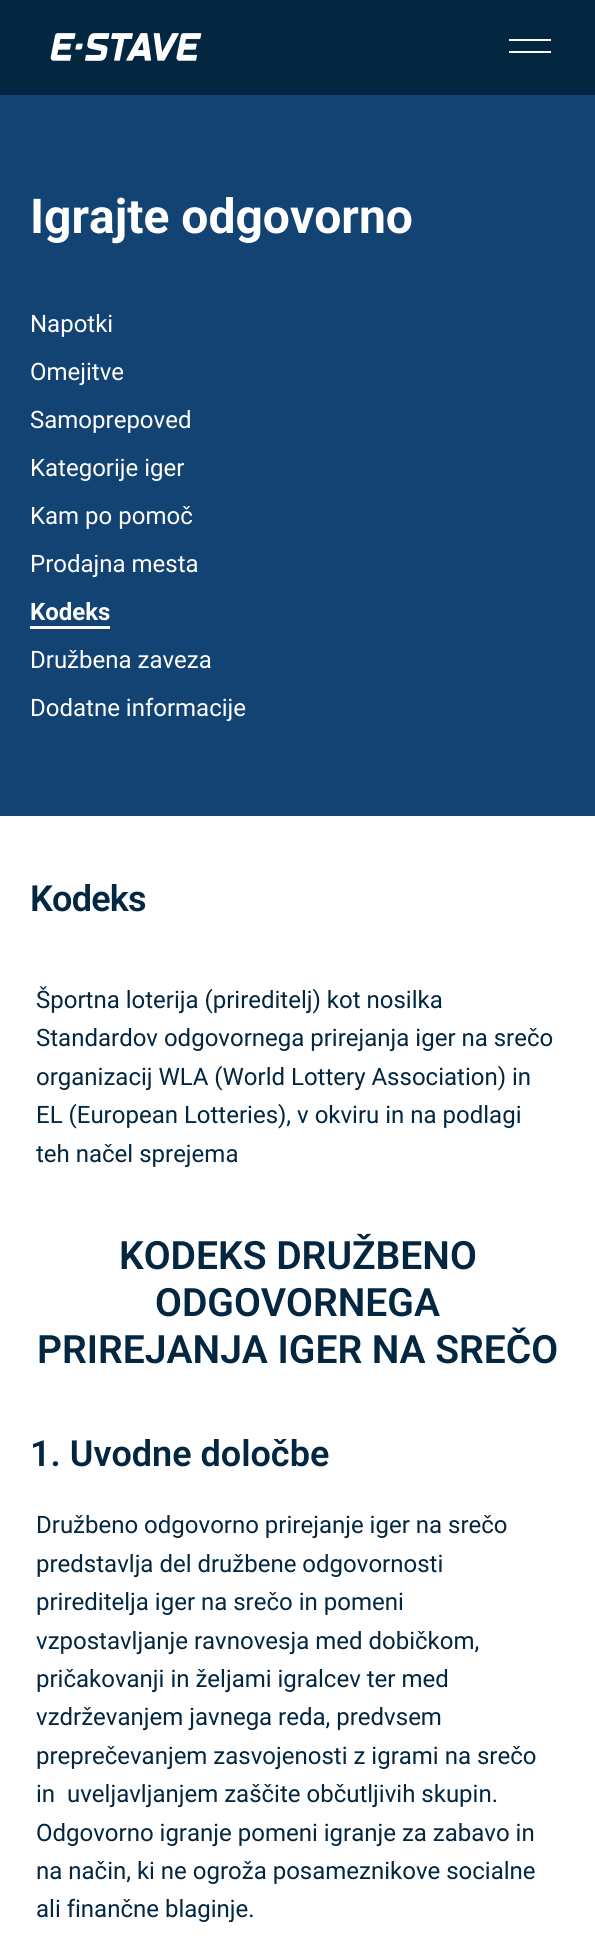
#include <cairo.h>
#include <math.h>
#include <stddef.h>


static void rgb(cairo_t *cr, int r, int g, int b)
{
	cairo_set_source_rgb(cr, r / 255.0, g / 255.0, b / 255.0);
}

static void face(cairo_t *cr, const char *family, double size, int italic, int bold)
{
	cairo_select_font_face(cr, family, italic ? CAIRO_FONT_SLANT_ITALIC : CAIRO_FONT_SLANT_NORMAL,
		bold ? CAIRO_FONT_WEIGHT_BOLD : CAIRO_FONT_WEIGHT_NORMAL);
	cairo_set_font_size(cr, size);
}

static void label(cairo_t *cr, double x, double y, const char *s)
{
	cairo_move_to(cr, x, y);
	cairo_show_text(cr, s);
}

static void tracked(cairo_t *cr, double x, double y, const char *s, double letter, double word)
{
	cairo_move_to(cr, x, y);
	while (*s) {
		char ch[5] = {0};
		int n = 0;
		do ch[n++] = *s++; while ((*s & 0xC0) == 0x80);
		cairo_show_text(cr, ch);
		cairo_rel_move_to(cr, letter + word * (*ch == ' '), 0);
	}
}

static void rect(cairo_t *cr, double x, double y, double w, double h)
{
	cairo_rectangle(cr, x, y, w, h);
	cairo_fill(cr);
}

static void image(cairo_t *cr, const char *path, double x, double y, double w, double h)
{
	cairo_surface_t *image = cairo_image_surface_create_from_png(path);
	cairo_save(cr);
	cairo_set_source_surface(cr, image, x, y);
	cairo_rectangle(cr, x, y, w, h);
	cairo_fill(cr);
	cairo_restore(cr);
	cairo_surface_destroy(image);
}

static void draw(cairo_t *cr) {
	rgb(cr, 255, 255, 255);
	cairo_paint(cr);
	rgb(cr, 3, 38, 65);
	rect(cr, 0, 0, 595, 95);
	image(cr, "image0.png", 50, 33, 152, 28);
	rgb(cr, 255, 255, 255);
	rect(cr, 509, 39, 42, 2);
	rect(cr, 509, 51, 42, 2);
	rgb(cr, 19, 67, 114);
	rect(cr, 0, 95, 595, 721);
	face(cr, "Roboto", 48, 0, 1);
	rgb(cr, 255, 255, 255);
	label(cr, 30, 233, "Igrajte odgovorno");
	face(cr, "Roboto", 24, 0, 0);
	label(cr, 30, 332, "Napotki");
	label(cr, 30, 380, "Omejitve");
	label(cr, 30, 428, "Samoprepoved");
	label(cr, 30, 476, "Kategorije iger");
	label(cr, 30, 524, "Kam po pomoč");
	label(cr, 30, 572, "Prodajna mesta");
	face(cr, "Roboto", 24, 0, 1);
	label(cr, 30, 620, "Kodeks");
	rect(cr, 30, 626, 80, 3);
	face(cr, "Roboto", 24, 0, 0);
	label(cr, 30, 668, "Družbena zaveza");
	label(cr, 30, 716, "Dodatne informacije");
	face(cr, "Roboto SemiBold", 36, 0, 0);
	rgb(cr, 3, 38, 65);
	tracked(cr, 30, 911, "Kodeks", -0.75, 0);
	face(cr, "Roboto", 24, 0, 0);
	label(cr, 36, 1008, "Športna loterija (prireditelj) kot nosilka");
	label(cr, 36, 1046, "Standardov odgovornega prirejanja iger na srečo");
	label(cr, 36, 1085, "organizacij WLA (World Lottery Association) in");
	label(cr, 36, 1123, "EL (European Lotteries), v okviru in na podlagi");
	label(cr, 36, 1162, "teh načel sprejema");
	face(cr, "Roboto SemiBold", 39, 0, 0);
	label(cr, 119, 1269, "KODEKS DRUŽBENO");
	label(cr, 155, 1316, "ODGOVORNEGA");
	label(cr, 37, 1363, "PRIREJANJA IGER NA SREČO");
	face(cr, "Roboto SemiBold", 36, 0, 0);
	label(cr, 30, 1466, "1. Uvodne določbe");
	face(cr, "Roboto", 24, 0, 0);
	label(cr, 36, 1533, "Družbeno odgovorno prirejanje iger na srečo");
	label(cr, 36, 1572, "predstavlja del družbene odgovornosti");
	label(cr, 36, 1610, "prireditelja iger na srečo in pomeni");
	label(cr, 36, 1649, "vzpostavljanje ravnovesja med dobičkom,");
	label(cr, 36, 1687, "pričakovanji in željami igralcev ter med");
	label(cr, 36, 1725, "vzdrževanjem javnega reda, predvsem");
	label(cr, 36, 1764, "preprečevanjem zasvojenosti z igrami na srečo");
	label(cr, 36, 1802, "in  uveljavljanjem zaščite občutljivih skupin.");
	label(cr, 36, 1841, "Odgovorno igranje pomeni igranje za zabavo in");
	label(cr, 36, 1879, "na način, ki ne ogroža posameznikove socialne");
	label(cr, 36, 1917, "ali finančne blaginje.");
}

int main(void) {
	cairo_surface_t *surface = cairo_image_surface_create(CAIRO_FORMAT_RGB24, 595, 1945);
	cairo_t *cr = cairo_create(surface);
	cairo_font_options_t *options = cairo_font_options_create();
	cairo_font_options_set_hint_metrics(options, CAIRO_HINT_METRICS_OFF);
	cairo_font_options_set_hint_style(options, CAIRO_HINT_STYLE_NONE);
	cairo_set_font_options(cr, options);
	cairo_set_miter_limit(cr, 4);
	draw(cr);
	cairo_surface_write_to_png(surface, "render.png");
	cairo_font_options_destroy(options);
	cairo_destroy(cr);
	cairo_surface_destroy(surface);
	return 0;
}
